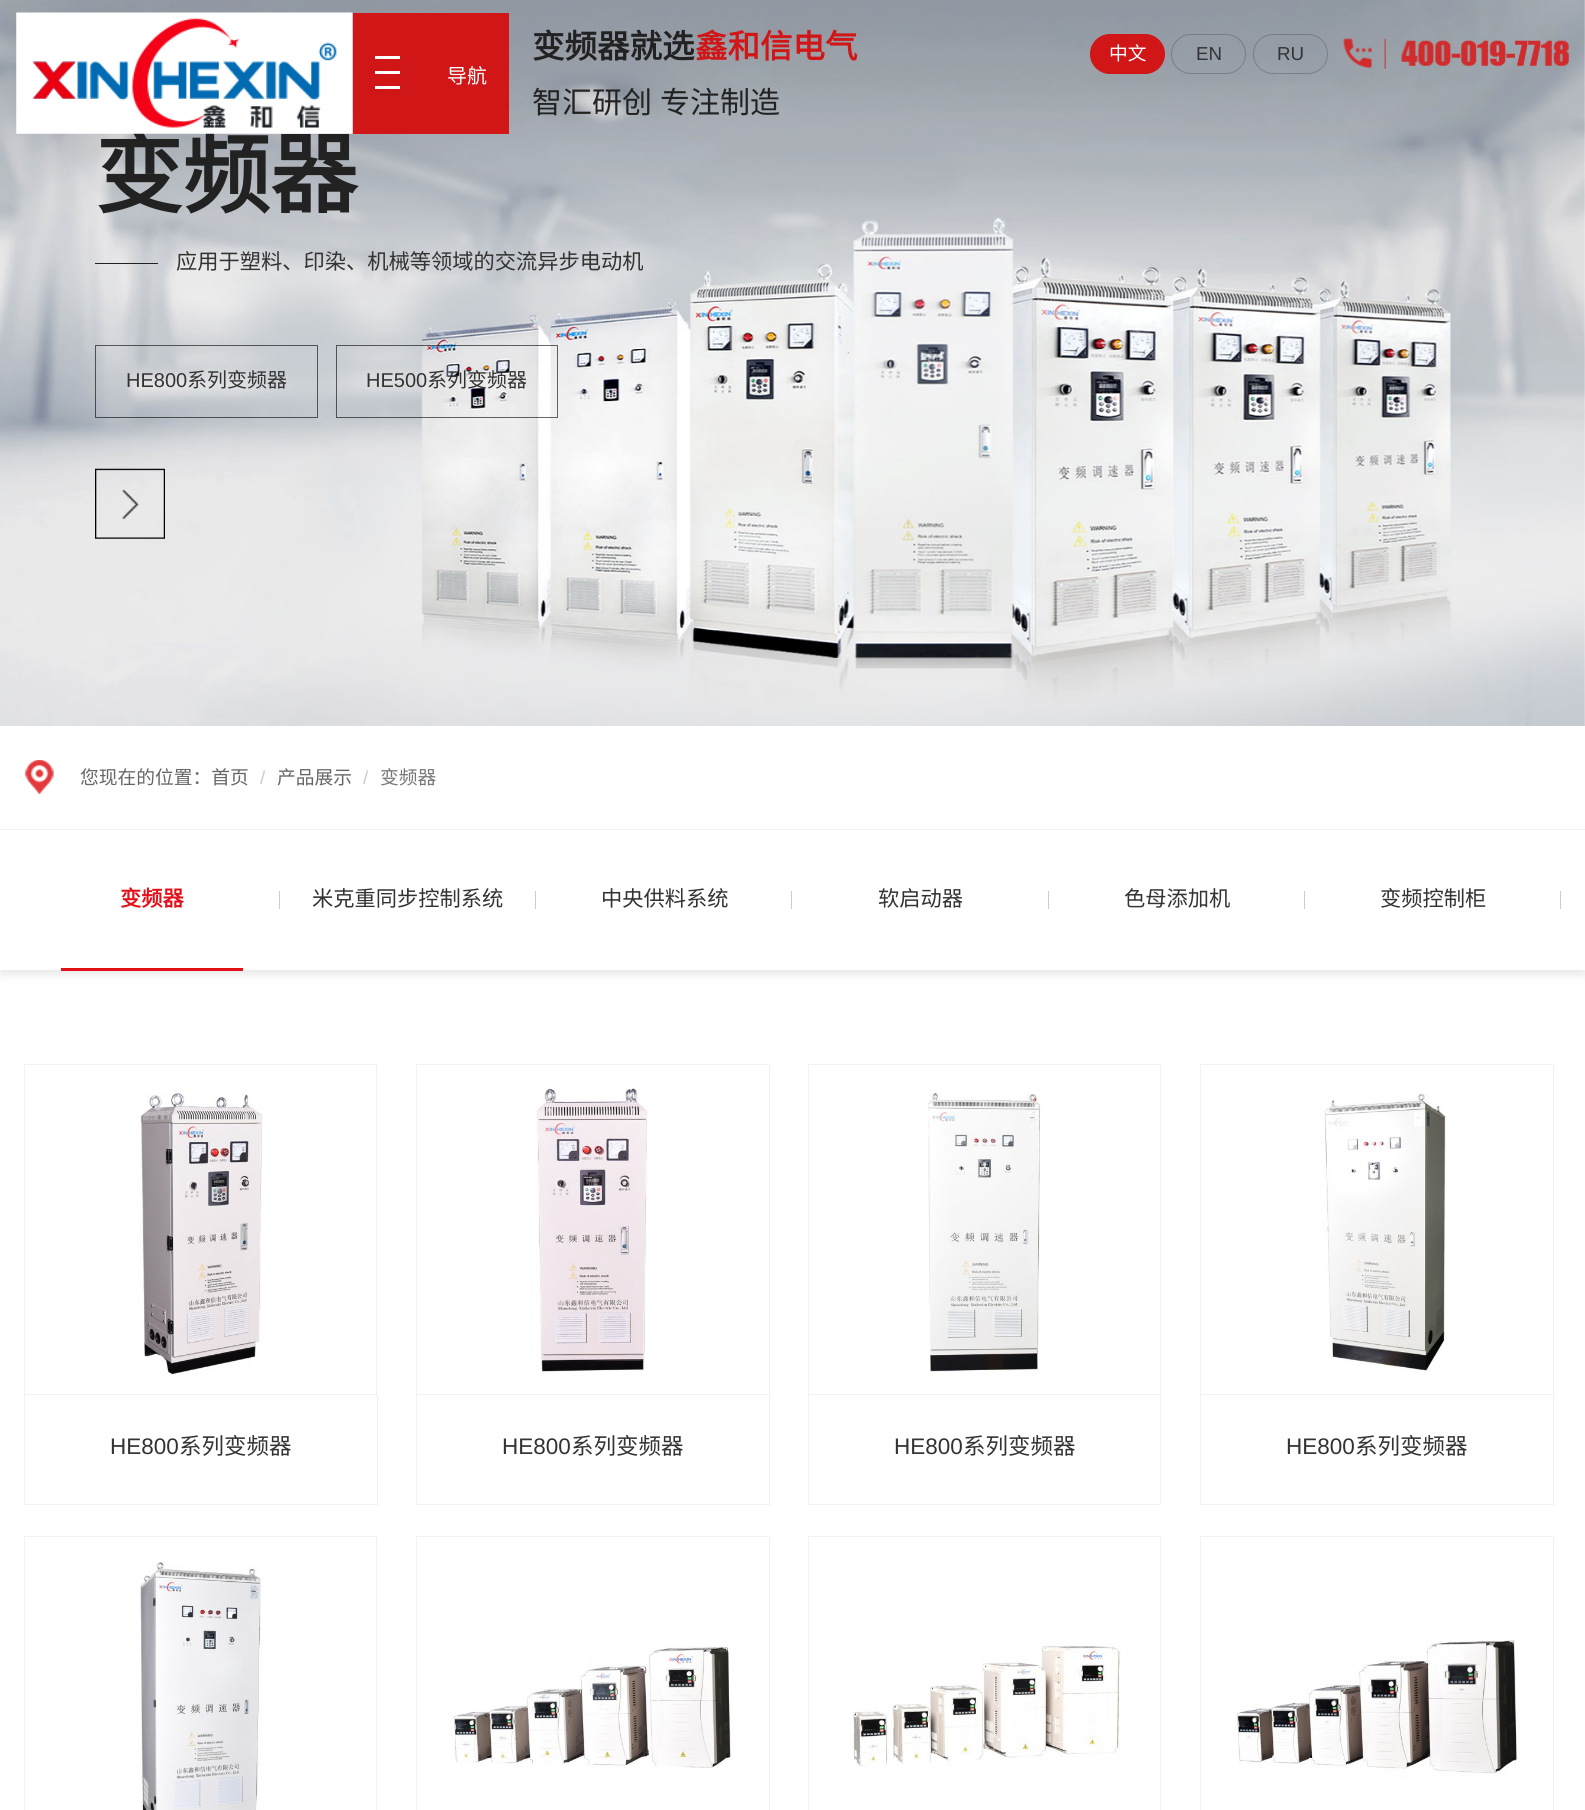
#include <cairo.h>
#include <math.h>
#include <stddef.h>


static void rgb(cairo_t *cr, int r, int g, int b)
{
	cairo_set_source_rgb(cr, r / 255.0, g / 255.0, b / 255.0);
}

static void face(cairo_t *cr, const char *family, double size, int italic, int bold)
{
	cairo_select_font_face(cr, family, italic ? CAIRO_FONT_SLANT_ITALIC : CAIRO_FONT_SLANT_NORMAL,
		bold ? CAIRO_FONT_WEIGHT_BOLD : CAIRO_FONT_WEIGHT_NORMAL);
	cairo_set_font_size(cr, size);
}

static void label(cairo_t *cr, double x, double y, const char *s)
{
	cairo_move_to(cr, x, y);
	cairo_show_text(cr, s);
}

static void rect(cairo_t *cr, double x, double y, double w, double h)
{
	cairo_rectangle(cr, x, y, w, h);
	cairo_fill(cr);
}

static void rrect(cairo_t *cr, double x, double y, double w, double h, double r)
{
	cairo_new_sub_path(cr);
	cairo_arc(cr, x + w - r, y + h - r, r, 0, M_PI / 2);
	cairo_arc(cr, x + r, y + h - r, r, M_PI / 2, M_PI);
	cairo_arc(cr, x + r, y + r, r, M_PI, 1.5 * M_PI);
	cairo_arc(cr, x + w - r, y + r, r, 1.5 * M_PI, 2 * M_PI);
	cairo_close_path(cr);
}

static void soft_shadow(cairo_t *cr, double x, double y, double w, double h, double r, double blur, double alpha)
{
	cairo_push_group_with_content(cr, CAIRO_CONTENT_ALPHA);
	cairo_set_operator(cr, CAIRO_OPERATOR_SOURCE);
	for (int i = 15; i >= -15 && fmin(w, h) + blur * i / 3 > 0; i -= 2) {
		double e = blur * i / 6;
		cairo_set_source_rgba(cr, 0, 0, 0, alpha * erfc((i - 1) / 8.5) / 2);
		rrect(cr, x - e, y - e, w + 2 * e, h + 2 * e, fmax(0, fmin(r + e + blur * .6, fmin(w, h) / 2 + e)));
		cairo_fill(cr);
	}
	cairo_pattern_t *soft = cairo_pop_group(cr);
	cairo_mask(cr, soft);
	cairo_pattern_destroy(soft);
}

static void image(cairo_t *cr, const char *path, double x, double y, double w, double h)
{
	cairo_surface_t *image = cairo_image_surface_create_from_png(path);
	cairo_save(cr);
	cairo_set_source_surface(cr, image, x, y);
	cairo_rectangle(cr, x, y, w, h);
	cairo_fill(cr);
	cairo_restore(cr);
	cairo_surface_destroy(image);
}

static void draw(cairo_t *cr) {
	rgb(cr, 255, 255, 255);
	cairo_paint(cr);
	image(cr, "image2.png", 0, 0, 1585, 726);
	face(cr, "Noto Sans CJK SC", 87.5, 0, 1);
	rgb(cr, 34, 34, 34);
	label(cr, 95, 206, "变频器");
	image(cr, "image0.png", 16, 12, 337, 122);
	rgb(cr, 208, 22, 23);
	rect(cr, 353, 13, 156, 121);
	rgb(cr, 255, 255, 255);
	rect(cr, 375, 56, 25, 3);
	rect(cr, 375, 71, 25, 3);
	face(cr, "Noto Sans CJK SC", 20, 0, 0);
	label(cr, 447, 83, "导航");
	rect(cr, 375, 86, 25, 3);
	face(cr, "Noto Sans CJK SC", 32.5, 0, 1);
	rgb(cr, 34, 34, 34);
	label(cr, 532, 58, "变频器就选");
	rgb(cr, 208, 22, 23);
	label(cr, 695, 58, "鑫和信电气");
	face(cr, "Noto Sans CJK SC", 30, 0, 0);
	rgb(cr, 34, 34, 34);
	label(cr, 532, 113, "智汇研创");
	label(cr, 660, 113, "专注制造");
	rgb(cr, 208, 22, 23);
	rrect(cr, 1090.5, 34.5, 74, 39, 19.5);
	cairo_fill_preserve(cr);
	cairo_set_line_width(cr, 1);
	cairo_stroke(cr);
	face(cr, "Noto Sans CJK SC", 18.75, 0, 0);
	rgb(cr, 255, 255, 255);
	label(cr, 1109, 60, "中文");
	rrect(cr, 1171.5, 34.5, 74, 39, 19.5);
	cairo_set_source_rgba(cr, 0, 0, 0, 0.2);
	cairo_stroke(cr);
	face(cr, "Liberation Sans", 18.75, 0, 0);
	rgb(cr, 51, 51, 51);
	label(cr, 1196, 60, "EN");
	rrect(cr, 1253.5, 34.5, 74, 39, 19.5);
	cairo_set_source_rgba(cr, 0, 0, 0, 0.2);
	cairo_stroke(cr);
	rgb(cr, 51, 51, 51);
	label(cr, 1277, 60, "RU");
	image(cr, "image1.png", 1343, 38, 226, 31);
	rgb(cr, 34, 34, 34);
	rect(cr, 95, 263, 63, 1);
	face(cr, "Noto Sans CJK SC", 21.25, 0, 0);
	rgb(cr, 51, 51, 51);
	label(cr, 176, 269, "应用于塑料、印染、机械等领域的交流异步电动机");
	cairo_rectangle(cr, 95.5, 345.5, 222, 72);
	cairo_set_source_rgba(cr, 0, 0, 0, 0.6);
	cairo_stroke(cr);
	face(cr, "Liberation Sans", 20, 0, 0);
	rgb(cr, 51, 51, 51);
	label(cr, 126, 387, "HE800");
	face(cr, "Noto Sans CJK SC", 20, 0, 0);
	label(cr, 187, 387, "系列变频器");
	cairo_rectangle(cr, 336.5, 345.5, 221, 72);
	cairo_set_source_rgba(cr, 0, 0, 0, 0.6);
	cairo_stroke(cr);
	face(cr, "Liberation Sans", 20, 0, 0);
	rgb(cr, 51, 51, 51);
	label(cr, 366, 387, "HE500");
	face(cr, "Noto Sans CJK SC", 20, 0, 0);
	label(cr, 427, 387, "系列变频器");
	image(cr, "image3.png", 95, 468, 70, 71);
	rgb(cr, 241, 241, 241);
	rect(cr, 0, 829, 1585, 1);
	image(cr, "image4.png", 24, 760, 30, 34);
	face(cr, "Noto Sans CJK SC", 18.75, 0, 0);
	rgb(cr, 102, 102, 102);
	label(cr, 80, 784, "您现在的位置：首页");
	face(cr, "Liberation Sans", 18.75, 0, 0);
	rgb(cr, 204, 204, 204);
	label(cr, 260, 784, "/");
	face(cr, "Noto Sans CJK SC", 18.75, 0, 0);
	rgb(cr, 102, 102, 102);
	label(cr, 277, 784, "产品展示");
	face(cr, "Liberation Sans", 18.75, 0, 0);
	rgb(cr, 204, 204, 204);
	label(cr, 363, 784, "/");
	face(cr, "Noto Sans CJK SC", 18.75, 0, 0);
	rgb(cr, 119, 119, 119);
	label(cr, 380, 784, "变频器");
	cairo_save(cr);
	cairo_set_fill_rule(cr, CAIRO_FILL_RULE_EVEN_ODD);
	cairo_new_path(cr);
	cairo_move_to(cr, 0, 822);
	cairo_line_to(cr, 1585, 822);
	cairo_line_to(cr, 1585, 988);
	cairo_line_to(cr, 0, 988);
	cairo_close_path(cr);
	cairo_move_to(cr, 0, 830);
	cairo_line_to(cr, 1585, 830);
	cairo_line_to(cr, 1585, 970);
	cairo_line_to(cr, 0, 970);
	cairo_close_path(cr);
	cairo_clip(cr);
	rgb(cr, 233, 233, 233);
	soft_shadow(cr, 0, 835, 1585, 140, 0, 4, 1);
	cairo_restore(cr);
	face(cr, "Noto Sans CJK SC", 21.25, 0, 1);
	rgb(cr, 228, 16, 25);
	label(cr, 120, 906, "变频器");
	rgb(cr, 204, 204, 204);
	rect(cr, 279, 891, 1, 18);
	rgb(cr, 228, 16, 25);
	rect(cr, 61, 968, 182, 3);
	face(cr, "Noto Sans CJK SC", 21.25, 0, 0);
	rgb(cr, 51, 51, 51);
	label(cr, 312, 906, "米克重同步控制系统");
	rgb(cr, 204, 204, 204);
	rect(cr, 535, 891, 1, 18);
	rgb(cr, 51, 51, 51);
	label(cr, 601, 906, "中央供料系统");
	rgb(cr, 204, 204, 204);
	rect(cr, 791, 891, 1, 18);
	rgb(cr, 51, 51, 51);
	label(cr, 878, 906, "软启动器");
	rgb(cr, 204, 204, 204);
	rect(cr, 1048, 891, 1, 18);
	rgb(cr, 51, 51, 51);
	label(cr, 1124, 906, "色母添加机");
	rgb(cr, 204, 204, 204);
	rect(cr, 1304, 891, 1, 18);
	rgb(cr, 51, 51, 51);
	label(cr, 1380, 906, "变频控制柜");
	rgb(cr, 204, 204, 204);
	rect(cr, 1560, 891, 1, 18);
	rgb(cr, 241, 241, 241);
	rect(cr, 24, 1064, 354, 1);
	rect(cr, 376, 1064, 1, 330);
	rect(cr, 24, 1064, 1, 330);
	image(cr, "image5.png", 124, 1093, 138, 289);
	cairo_rectangle(cr, 24.5, 1394.5, 353, 110);
	cairo_stroke(cr);
	face(cr, "Liberation Sans", 22.5, 0, 0);
	rgb(cr, 51, 51, 51);
	label(cr, 110, 1454, "HE800");
	face(cr, "Noto Sans CJK SC", 22.5, 0, 0);
	label(cr, 179, 1454, "系列变频器");
	rgb(cr, 241, 241, 241);
	rect(cr, 416, 1064, 354, 1);
	rect(cr, 769, 1064, 1, 330);
	rect(cr, 416, 1064, 1, 330);
	image(cr, "image6.png", 536, 1088, 112, 284);
	cairo_rectangle(cr, 416.5, 1394.5, 353, 110);
	cairo_stroke(cr);
	face(cr, "Liberation Sans", 22.5, 0, 0);
	rgb(cr, 51, 51, 51);
	label(cr, 502, 1454, "HE800");
	face(cr, "Noto Sans CJK SC", 22.5, 0, 0);
	label(cr, 571, 1454, "系列变频器");
	rgb(cr, 241, 241, 241);
	rect(cr, 808, 1064, 353, 1);
	rect(cr, 1160, 1064, 1, 330);
	rect(cr, 808, 1064, 1, 330);
	image(cr, "image7.png", 927, 1093, 114, 279);
	cairo_rectangle(cr, 808.5, 1394.5, 352, 110);
	cairo_stroke(cr);
	face(cr, "Liberation Sans", 22.5, 0, 0);
	rgb(cr, 51, 51, 51);
	label(cr, 894, 1454, "HE800");
	face(cr, "Noto Sans CJK SC", 22.5, 0, 0);
	label(cr, 963, 1454, "系列变频器");
	rgb(cr, 241, 241, 241);
	rect(cr, 1200, 1064, 354, 1);
	rect(cr, 1553, 1064, 1, 330);
	rect(cr, 1200, 1064, 1, 330);
	image(cr, "image8.png", 1324, 1093, 123, 279);
	cairo_rectangle(cr, 1200.5, 1394.5, 353, 110);
	cairo_stroke(cr);
	face(cr, "Liberation Sans", 22.5, 0, 0);
	rgb(cr, 51, 51, 51);
	label(cr, 1286, 1454, "HE800");
	face(cr, "Noto Sans CJK SC", 22.5, 0, 0);
	label(cr, 1355, 1454, "系列变频器");
	rgb(cr, 241, 241, 241);
	rect(cr, 24, 1536, 354, 1);
	rect(cr, 376, 1536, 1, 274);
	rect(cr, 24, 1536, 1, 274);
	image(cr, "image9.png", 139, 1561, 123, 249);
	rect(cr, 416, 1536, 354, 1);
	rect(cr, 769, 1536, 1, 274);
	rect(cr, 416, 1536, 1, 274);
	image(cr, "image10.png", 451, 1646, 282, 123);
	rect(cr, 808, 1536, 353, 1);
	rect(cr, 1160, 1536, 1, 274);
	rect(cr, 808, 1536, 1, 274);
	image(cr, "image11.png", 853, 1588, 268, 179);
	rect(cr, 1200, 1536, 354, 1);
	rect(cr, 1553, 1536, 1, 274);
	rect(cr, 1200, 1536, 1, 274);
	image(cr, "image12.png", 1235, 1639, 283, 139);
}

int main(void) {
	cairo_surface_t *surface = cairo_image_surface_create(CAIRO_FORMAT_RGB24, 1585, 1810);
	cairo_t *cr = cairo_create(surface);
	cairo_font_options_t *options = cairo_font_options_create();
	cairo_font_options_set_hint_metrics(options, CAIRO_HINT_METRICS_OFF);
	cairo_font_options_set_hint_style(options, CAIRO_HINT_STYLE_NONE);
	cairo_set_font_options(cr, options);
	cairo_set_miter_limit(cr, 4);
	draw(cr);
	cairo_surface_write_to_png(surface, "render.png");
	cairo_font_options_destroy(options);
	cairo_destroy(cr);
	cairo_surface_destroy(surface);
	return 0;
}
